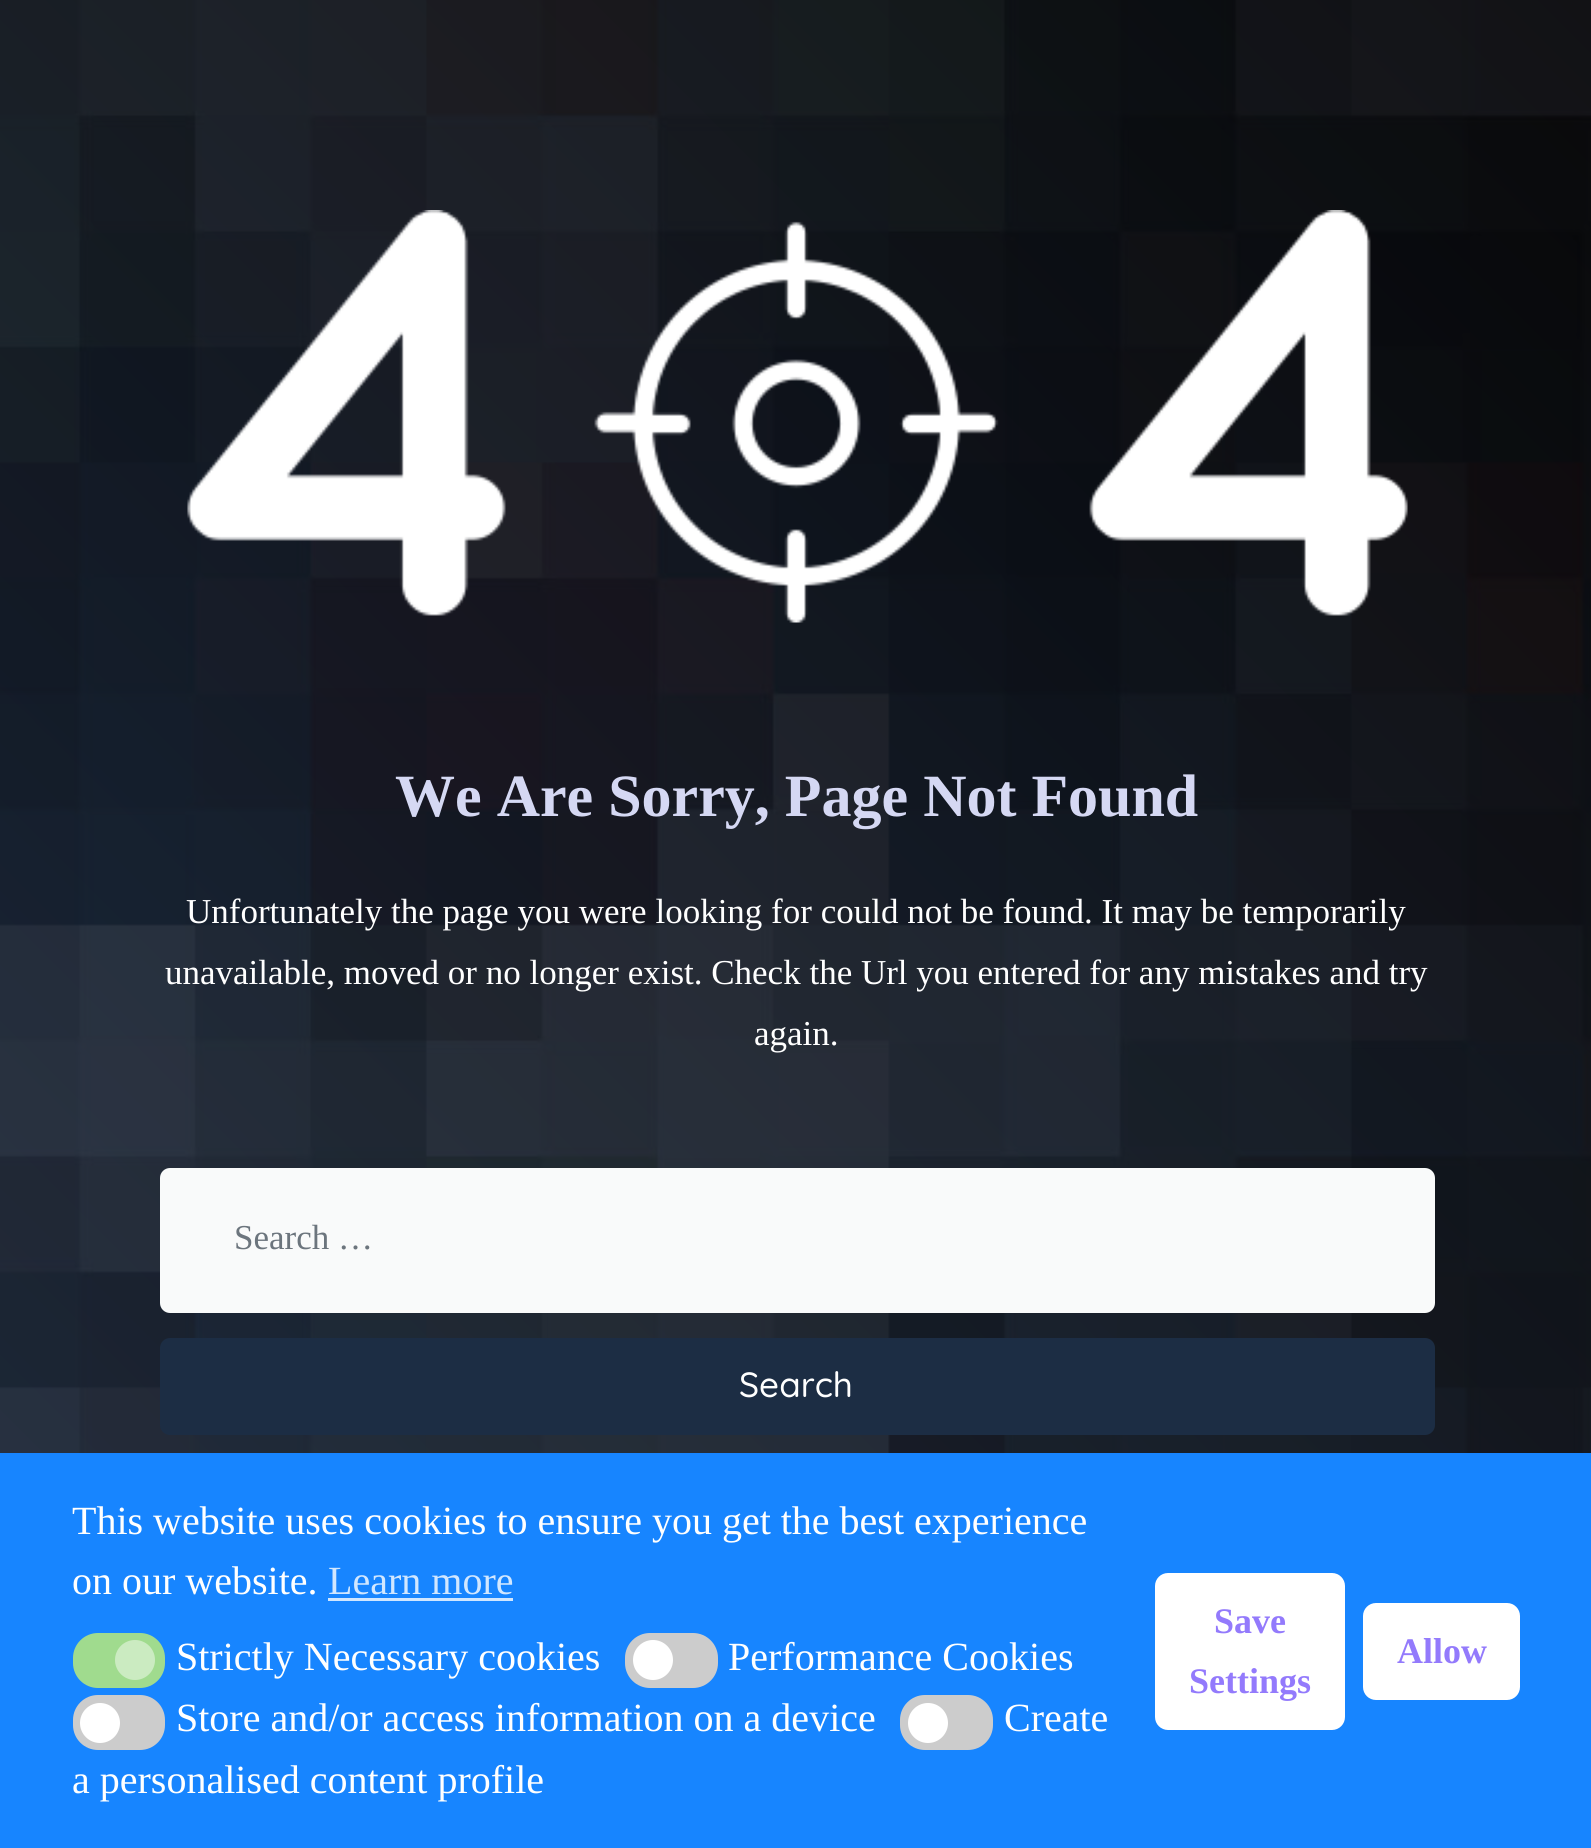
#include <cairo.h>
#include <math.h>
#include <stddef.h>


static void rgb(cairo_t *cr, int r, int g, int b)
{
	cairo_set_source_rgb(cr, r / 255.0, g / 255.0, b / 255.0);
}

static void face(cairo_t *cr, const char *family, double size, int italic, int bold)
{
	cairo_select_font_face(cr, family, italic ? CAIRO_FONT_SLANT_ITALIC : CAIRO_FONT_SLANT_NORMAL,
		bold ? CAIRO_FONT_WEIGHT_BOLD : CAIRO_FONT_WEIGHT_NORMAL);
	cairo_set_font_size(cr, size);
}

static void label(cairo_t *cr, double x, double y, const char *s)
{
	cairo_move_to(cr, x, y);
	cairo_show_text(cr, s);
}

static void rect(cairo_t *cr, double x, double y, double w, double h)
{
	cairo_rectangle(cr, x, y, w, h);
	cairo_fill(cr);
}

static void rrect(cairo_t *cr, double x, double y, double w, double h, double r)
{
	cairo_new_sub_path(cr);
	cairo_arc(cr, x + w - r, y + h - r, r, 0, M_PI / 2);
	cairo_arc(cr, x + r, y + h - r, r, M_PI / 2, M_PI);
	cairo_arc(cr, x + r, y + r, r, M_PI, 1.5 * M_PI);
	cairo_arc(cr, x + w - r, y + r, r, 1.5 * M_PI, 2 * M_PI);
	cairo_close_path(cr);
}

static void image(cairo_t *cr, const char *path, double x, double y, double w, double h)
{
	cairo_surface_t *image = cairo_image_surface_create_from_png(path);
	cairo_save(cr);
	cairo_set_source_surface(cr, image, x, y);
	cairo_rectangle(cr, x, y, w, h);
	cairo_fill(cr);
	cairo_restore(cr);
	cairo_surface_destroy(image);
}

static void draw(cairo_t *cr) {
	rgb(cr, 255, 255, 255);
	cairo_paint(cr);
	image(cr, "image0.png", 0, 0, 1591, 1453);
	image(cr, "image1.png", 187, 210, 1221, 413);
	face(cr, "Liberation Serif", 60, 0, 1);
	rgb(cr, 213, 216, 243);
	label(cr, 395, 816, "We Are Sorry, Page Not Found");
	face(cr, "Liberation Serif", 35, 0, 0);
	rgb(cr, 255, 255, 255);
	label(cr, 186, 923, "Unfortunately the page you were looking for could not be found. It may be temporarily");
	label(cr, 165, 984, "unavailable, moved or no longer exist. Check the Url you entered for any mistakes and try");
	label(cr, 754, 1045, "again.");
	rgb(cr, 249, 250, 250);
	rrect(cr, 160, 1168, 1275, 145, 10);
	cairo_fill(cr);
	rgb(cr, 108, 117, 125);
	label(cr, 234, 1249, "Search …");
	rgb(cr, 28, 45, 68);
	rrect(cr, 162.5, 1340.5, 1270, 92, 7.5);
	cairo_fill_preserve(cr);
	cairo_set_line_width(cr, 5);
	cairo_stroke(cr);
	face(cr, "Quicksand Medium", 35, 0, 0);
	rgb(cr, 255, 255, 255);
	label(cr, 739, 1397, "Search");
	rgb(cr, 23, 133, 255);
	rect(cr, 0, 1453, 1591, 395);
	face(cr, "Liberation Serif", 40, 0, 0);
	rgb(cr, 255, 255, 255);
	label(cr, 72, 1534, "This website uses cookies to ensure you get the best experience");
	label(cr, 72, 1594, "on our website.");
	rgb(cr, 209, 231, 255);
	label(cr, 328, 1594, "Learn more");
	rect(cr, 328, 1598, 185, 3);
	rgb(cr, 160, 219, 142);
	rrect(cr, 73, 1633, 92, 55, 25);
	cairo_fill(cr);
	rgb(cr, 203, 235, 193);
	cairo_arc(cr, 135, 1660, 20, 0, 2 * M_PI);
	cairo_fill(cr);
	rgb(cr, 255, 255, 255);
	label(cr, 176, 1670, "Strictly Necessary cookies");
	rgb(cr, 204, 204, 204);
	rrect(cr, 625, 1633, 93, 55, 25);
	cairo_fill(cr);
	rgb(cr, 255, 255, 255);
	cairo_arc(cr, 653, 1660, 20, 0, 2 * M_PI);
	cairo_fill(cr);
	label(cr, 728, 1670, "Performance Cookies");
	rgb(cr, 204, 204, 204);
	rrect(cr, 73, 1695, 92, 55, 25);
	cairo_fill(cr);
	rgb(cr, 255, 255, 255);
	cairo_arc(cr, 100, 1723, 20, 0, 2 * M_PI);
	cairo_fill(cr);
	label(cr, 176, 1731, "Store and/or access information on a device");
	rgb(cr, 204, 204, 204);
	rrect(cr, 900, 1695, 93, 55, 25);
	cairo_fill(cr);
	rgb(cr, 255, 255, 255);
	cairo_arc(cr, 928, 1723, 20, 0, 2 * M_PI);
	cairo_fill(cr);
	label(cr, 1004, 1731, "Create");
	label(cr, 72, 1793, "a personalised content profile");
	rrect(cr, 1155, 1573, 190, 157, 13);
	cairo_fill(cr);
	face(cr, "Liberation Serif", 36, 0, 1);
	rgb(cr, 147, 122, 252);
	label(cr, 1214, 1633, "Save");
	label(cr, 1189, 1693, "Settings");
	rgb(cr, 255, 255, 255);
	rrect(cr, 1363, 1603, 157, 97, 13);
	cairo_fill(cr);
	rgb(cr, 147, 122, 252);
	label(cr, 1397, 1663, "Allow");
}

int main(void) {
	cairo_surface_t *surface = cairo_image_surface_create(CAIRO_FORMAT_RGB24, 1591, 1848);
	cairo_t *cr = cairo_create(surface);
	cairo_font_options_t *options = cairo_font_options_create();
	cairo_font_options_set_hint_metrics(options, CAIRO_HINT_METRICS_OFF);
	cairo_font_options_set_hint_style(options, CAIRO_HINT_STYLE_NONE);
	cairo_set_font_options(cr, options);
	cairo_set_miter_limit(cr, 4);
	draw(cr);
	cairo_surface_write_to_png(surface, "render.png");
	cairo_font_options_destroy(options);
	cairo_destroy(cr);
	cairo_surface_destroy(surface);
	return 0;
}
